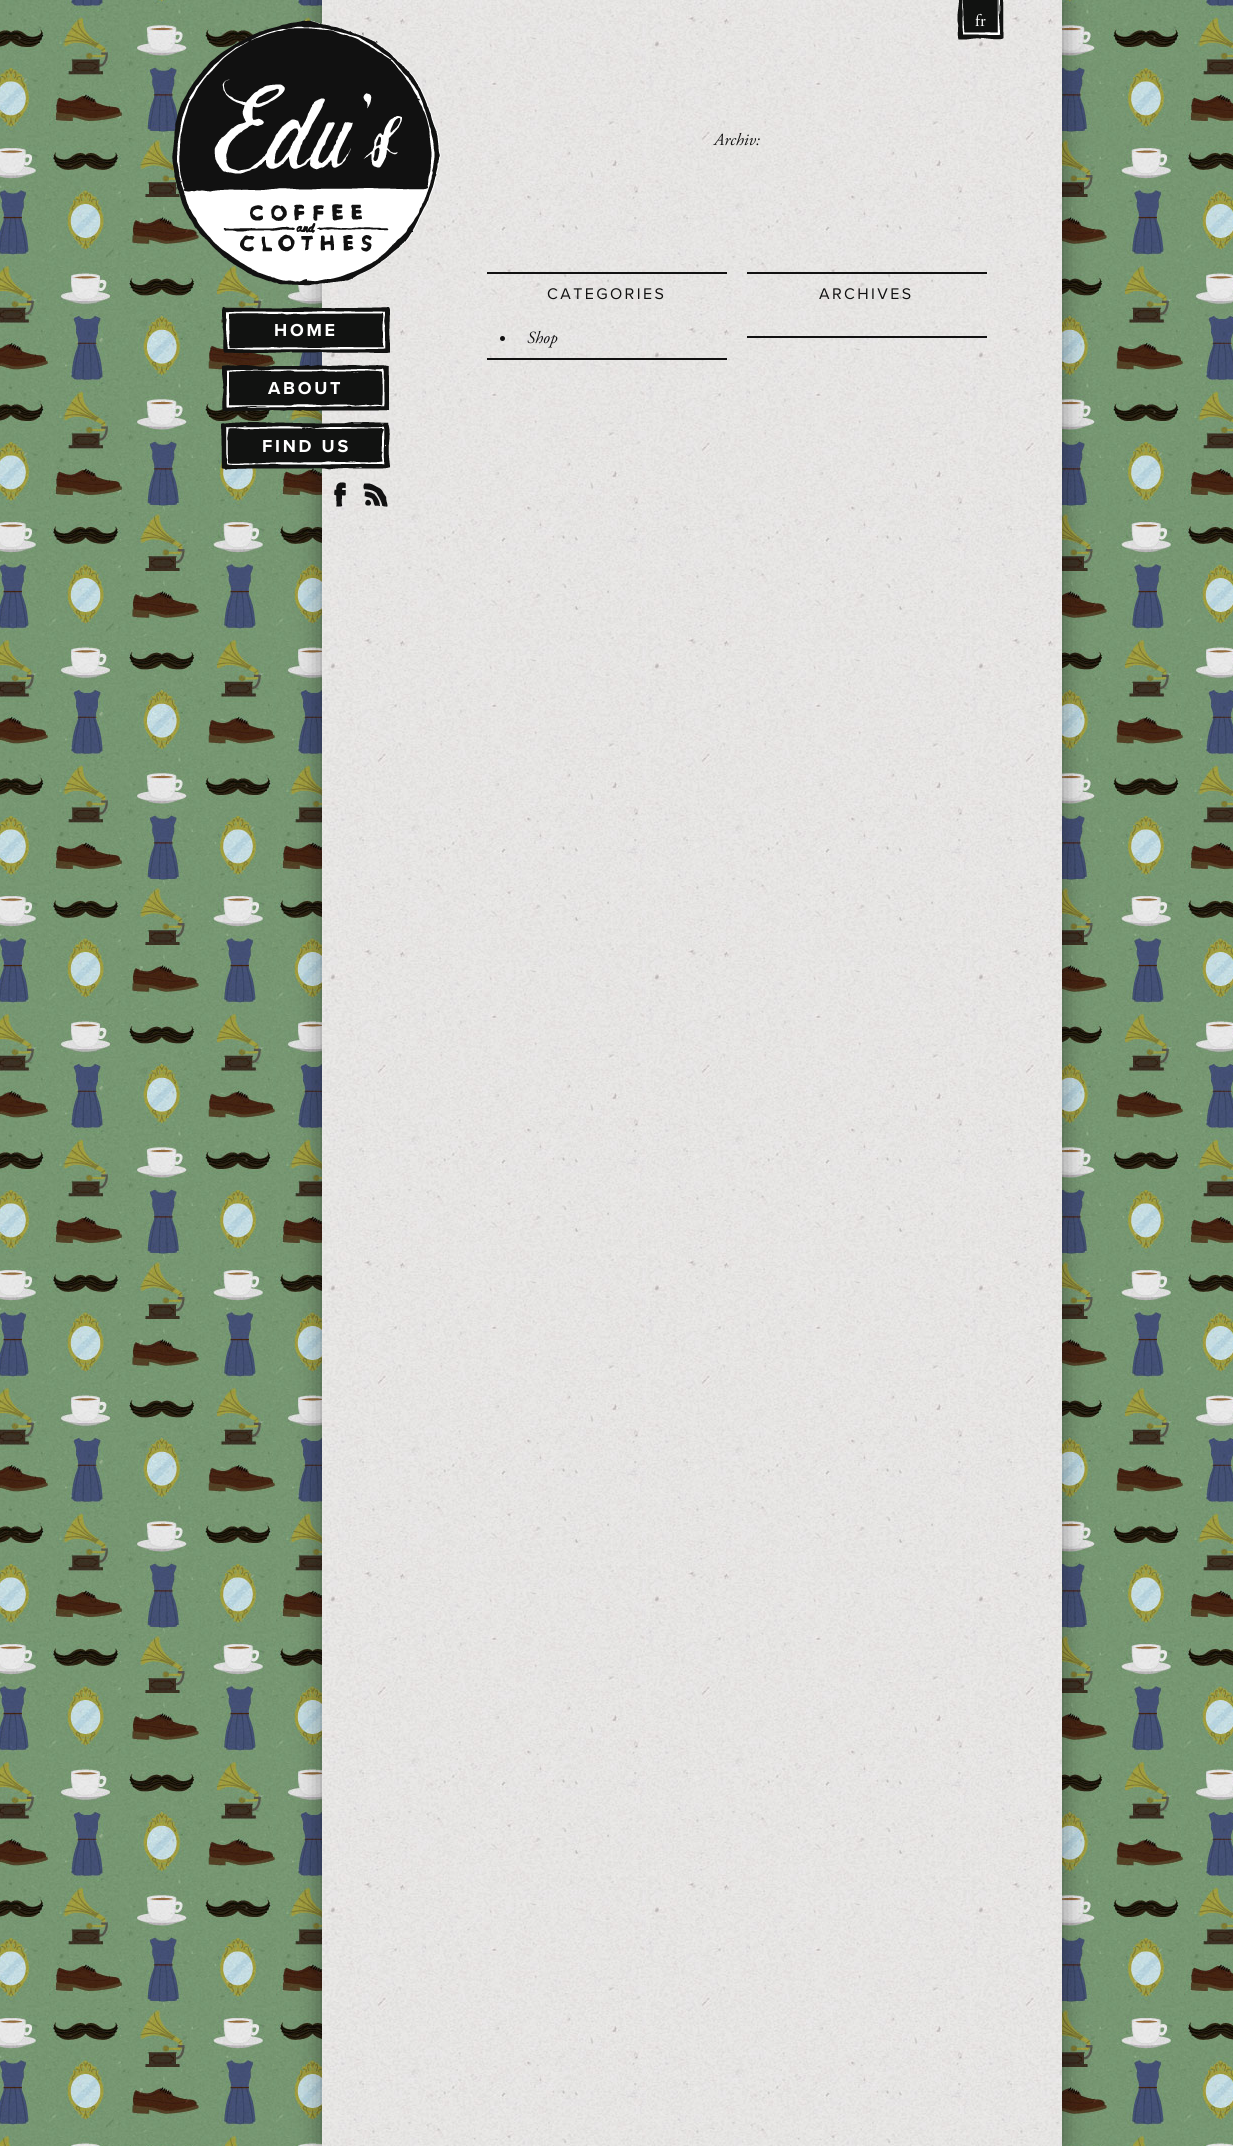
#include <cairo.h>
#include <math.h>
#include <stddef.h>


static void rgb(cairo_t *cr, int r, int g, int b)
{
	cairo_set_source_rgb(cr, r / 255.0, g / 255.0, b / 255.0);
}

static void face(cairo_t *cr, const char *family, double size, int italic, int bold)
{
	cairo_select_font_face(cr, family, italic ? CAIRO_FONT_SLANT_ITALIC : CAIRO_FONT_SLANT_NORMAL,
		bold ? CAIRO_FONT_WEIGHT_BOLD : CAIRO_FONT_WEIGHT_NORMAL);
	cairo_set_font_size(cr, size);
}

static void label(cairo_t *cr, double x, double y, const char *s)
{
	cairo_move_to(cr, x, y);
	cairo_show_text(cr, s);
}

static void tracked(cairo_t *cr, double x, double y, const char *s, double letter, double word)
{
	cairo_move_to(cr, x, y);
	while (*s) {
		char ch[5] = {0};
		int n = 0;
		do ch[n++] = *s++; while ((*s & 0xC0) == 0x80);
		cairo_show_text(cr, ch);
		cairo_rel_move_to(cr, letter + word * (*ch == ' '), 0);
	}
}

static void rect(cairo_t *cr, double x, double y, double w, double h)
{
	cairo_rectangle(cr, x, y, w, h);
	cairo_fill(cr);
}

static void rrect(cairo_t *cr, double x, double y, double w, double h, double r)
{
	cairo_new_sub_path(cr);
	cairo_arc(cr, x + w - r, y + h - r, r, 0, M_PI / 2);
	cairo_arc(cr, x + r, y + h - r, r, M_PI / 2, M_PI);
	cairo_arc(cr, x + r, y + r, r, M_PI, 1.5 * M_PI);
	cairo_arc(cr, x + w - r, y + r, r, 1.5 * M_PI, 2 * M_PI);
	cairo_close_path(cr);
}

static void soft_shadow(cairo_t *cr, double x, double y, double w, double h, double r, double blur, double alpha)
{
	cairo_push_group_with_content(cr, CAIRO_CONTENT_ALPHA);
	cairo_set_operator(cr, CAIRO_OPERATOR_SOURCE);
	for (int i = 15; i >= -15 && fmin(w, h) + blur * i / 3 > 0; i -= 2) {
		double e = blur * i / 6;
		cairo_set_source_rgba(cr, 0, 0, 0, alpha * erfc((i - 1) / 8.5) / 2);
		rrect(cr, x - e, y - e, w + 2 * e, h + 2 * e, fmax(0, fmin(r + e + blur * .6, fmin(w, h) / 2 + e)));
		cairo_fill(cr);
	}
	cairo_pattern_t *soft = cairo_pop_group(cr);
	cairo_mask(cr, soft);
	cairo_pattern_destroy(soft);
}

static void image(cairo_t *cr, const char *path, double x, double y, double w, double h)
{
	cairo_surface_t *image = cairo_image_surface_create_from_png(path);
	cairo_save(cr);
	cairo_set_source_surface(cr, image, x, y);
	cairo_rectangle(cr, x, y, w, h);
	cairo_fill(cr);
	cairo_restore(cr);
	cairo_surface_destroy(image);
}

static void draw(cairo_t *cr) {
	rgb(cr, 255, 255, 255);
	cairo_paint(cr);
	image(cr, "image0.png", 0, 0, 1233, 2146);
	rgb(cr, 10, 10, 10);
	soft_shadow(cr, 322, 0, 740, 2146, 0, 12.5, 0.45);
	image(cr, "image2.png", 322, 0, 740, 2146);
	image(cr, "image1.png", 957, 0, 47, 40);
	face(cr, "Adobe Garamond", 17, 0, 0);
	rgb(cr, 255, 255, 255);
	label(cr, 975, 26, "fr");
	face(cr, "Adobe Garamond", 17, 1, 0);
	rgb(cr, 17, 17, 17);
	label(cr, 714, 145, "Archiv:");
	rect(cr, 487, 272, 240, 2);
	rect(cr, 487, 358, 240, 2);
	face(cr, "Proxima Nova", 16, 0, 0);
	tracked(cr, 547, 299, "CATEGORIES", 2.4, 0);
	cairo_new_path(cr);
	cairo_arc(cr, 502.5, 338.5, 2.5, 0, 2 * M_PI);
	cairo_fill(cr);
	face(cr, "Adobe Garamond", 17, 1, 0);
	label(cr, 527, 343, "Shop");
	rect(cr, 747, 272, 240, 2);
	rect(cr, 747, 336, 240, 2);
	face(cr, "Proxima Nova", 16, 0, 0);
	tracked(cr, 819, 299, "ARCHIVES", 2.4, 0);
	image(cr, "image3.png", 172, 20, 269, 266);
	image(cr, "image4.png", 222, 307, 168, 46);
	face(cr, "Proxima Nova", 18, 0, 1);
	rgb(cr, 255, 255, 255);
	tracked(cr, 274, 336, "HOME", 2.75, 0);
	image(cr, "image5.png", 222, 365, 167, 46);
	tracked(cr, 268, 394, "ABOUT", 2.75, 0);
	image(cr, "image6.png", 221, 422, 169, 48);
	tracked(cr, 262, 452, "FIND US", 2.75, 0);
	image(cr, "image7.png", 334, 482, 12, 25);
	image(cr, "image8.png", 363, 483, 25, 24);
}

int main(void) {
	cairo_surface_t *surface = cairo_image_surface_create(CAIRO_FORMAT_RGB24, 1233, 2146);
	cairo_t *cr = cairo_create(surface);
	cairo_font_options_t *options = cairo_font_options_create();
	cairo_font_options_set_hint_metrics(options, CAIRO_HINT_METRICS_OFF);
	cairo_font_options_set_hint_style(options, CAIRO_HINT_STYLE_NONE);
	cairo_set_font_options(cr, options);
	cairo_set_miter_limit(cr, 4);
	draw(cr);
	cairo_surface_write_to_png(surface, "render.png");
	cairo_font_options_destroy(options);
	cairo_destroy(cr);
	cairo_surface_destroy(surface);
	return 0;
}
